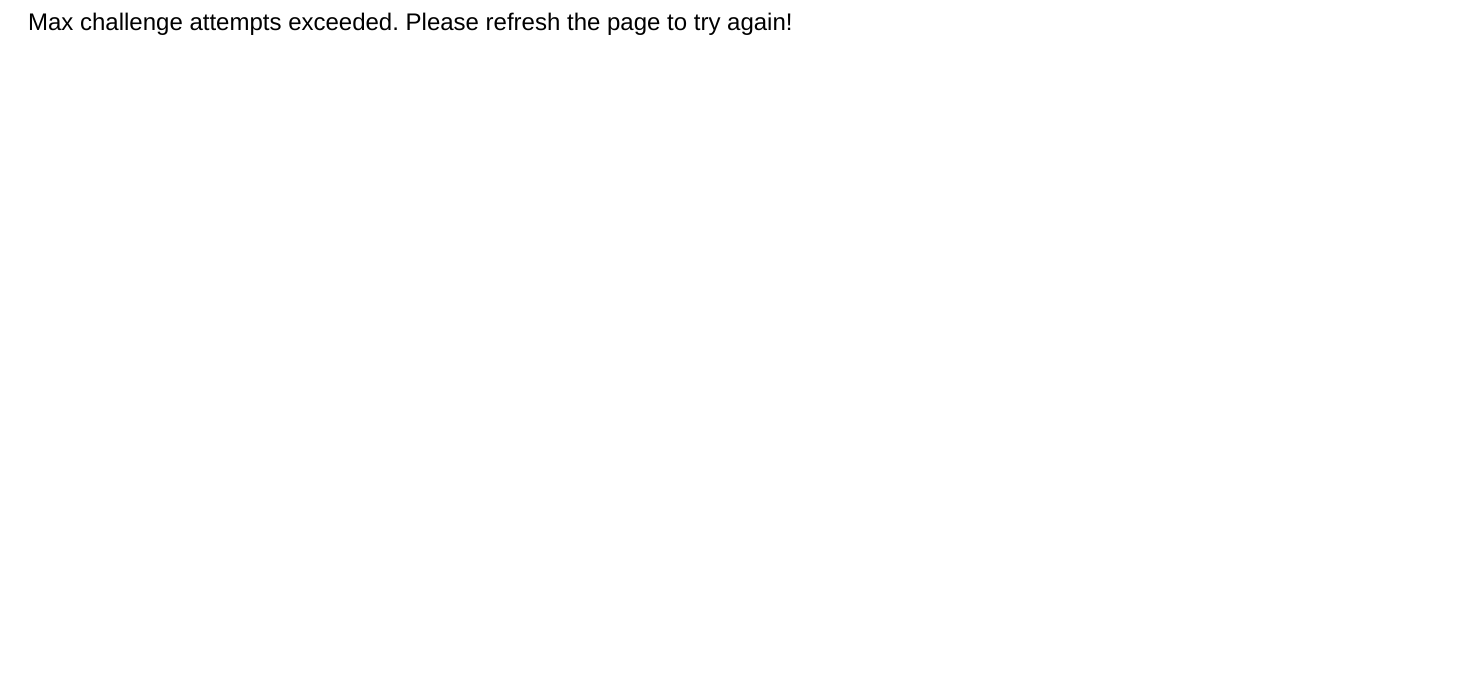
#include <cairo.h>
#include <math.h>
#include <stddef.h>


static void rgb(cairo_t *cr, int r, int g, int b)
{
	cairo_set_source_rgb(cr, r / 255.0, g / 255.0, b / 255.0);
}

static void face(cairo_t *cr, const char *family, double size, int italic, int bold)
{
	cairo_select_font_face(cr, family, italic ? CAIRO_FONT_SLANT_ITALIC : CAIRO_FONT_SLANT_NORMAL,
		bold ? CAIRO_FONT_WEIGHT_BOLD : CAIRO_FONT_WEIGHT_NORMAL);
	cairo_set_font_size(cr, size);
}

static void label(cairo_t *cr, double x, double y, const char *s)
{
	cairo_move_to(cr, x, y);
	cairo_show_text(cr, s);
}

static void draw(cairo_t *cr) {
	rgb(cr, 255, 255, 255);
	cairo_paint(cr);
	face(cr, "Liberation Sans", 24, 0, 0);
	rgb(cr, 0, 0, 0);
	label(cr, 28, 30, "Max challenge attempts exceeded. Please refresh the page to try again!");
}

int main(void) {
	cairo_surface_t *surface = cairo_image_surface_create(CAIRO_FORMAT_RGB24, 1462, 695);
	cairo_t *cr = cairo_create(surface);
	cairo_font_options_t *options = cairo_font_options_create();
	cairo_font_options_set_hint_metrics(options, CAIRO_HINT_METRICS_OFF);
	cairo_font_options_set_hint_style(options, CAIRO_HINT_STYLE_NONE);
	cairo_set_font_options(cr, options);
	cairo_set_miter_limit(cr, 4);
	draw(cr);
	cairo_surface_write_to_png(surface, "render.png");
	cairo_font_options_destroy(options);
	cairo_destroy(cr);
	cairo_surface_destroy(surface);
	return 0;
}
